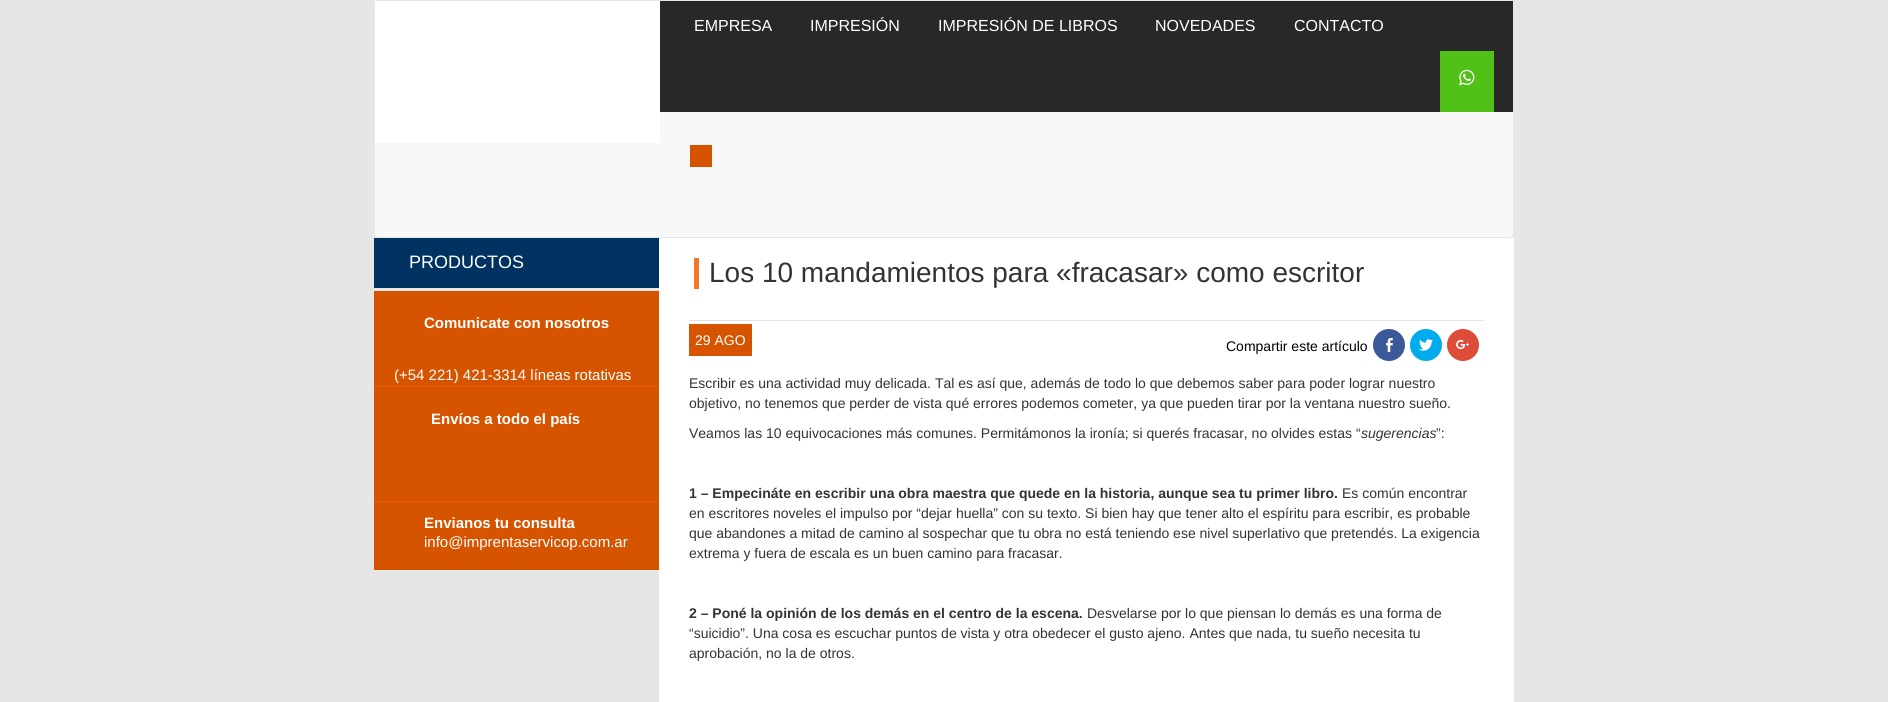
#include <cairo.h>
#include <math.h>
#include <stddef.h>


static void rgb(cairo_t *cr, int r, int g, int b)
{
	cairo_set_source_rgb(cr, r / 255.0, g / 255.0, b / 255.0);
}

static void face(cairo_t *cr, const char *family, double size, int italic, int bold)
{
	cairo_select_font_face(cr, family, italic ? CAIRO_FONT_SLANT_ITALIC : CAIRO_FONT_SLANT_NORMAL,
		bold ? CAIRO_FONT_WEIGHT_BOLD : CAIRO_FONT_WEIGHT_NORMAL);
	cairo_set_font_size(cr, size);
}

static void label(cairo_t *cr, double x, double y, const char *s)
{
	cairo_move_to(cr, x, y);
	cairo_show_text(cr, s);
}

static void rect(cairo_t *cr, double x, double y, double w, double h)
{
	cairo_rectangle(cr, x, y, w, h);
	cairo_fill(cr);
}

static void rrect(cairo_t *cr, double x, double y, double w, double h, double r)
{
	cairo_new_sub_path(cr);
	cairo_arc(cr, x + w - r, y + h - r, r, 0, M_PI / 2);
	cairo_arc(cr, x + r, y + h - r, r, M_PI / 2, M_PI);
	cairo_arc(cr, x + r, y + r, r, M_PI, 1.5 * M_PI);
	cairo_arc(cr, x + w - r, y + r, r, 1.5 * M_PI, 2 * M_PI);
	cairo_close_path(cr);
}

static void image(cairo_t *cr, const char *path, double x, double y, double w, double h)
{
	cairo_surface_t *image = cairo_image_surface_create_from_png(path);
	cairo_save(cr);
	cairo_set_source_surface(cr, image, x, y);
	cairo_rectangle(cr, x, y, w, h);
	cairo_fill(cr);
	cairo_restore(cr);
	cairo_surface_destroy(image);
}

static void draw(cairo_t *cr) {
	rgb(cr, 230, 230, 230);
	cairo_paint(cr);
	rgb(cr, 248, 248, 248);
	rrect(cr, 374.5, 0.5, 1139, 237, 3.5);
	cairo_fill_preserve(cr);
	rgb(cr, 231, 231, 231);
	cairo_set_line_width(cr, 1);
	cairo_stroke(cr);
	rgb(cr, 255, 255, 255);
	rect(cr, 375, 1, 285, 142);
	rgb(cr, 40, 40, 40);
	rect(cr, 660, 1, 853, 111);
	face(cr, "Liberation Sans", 16, 0, 0);
	rgb(cr, 255, 255, 255);
	label(cr, 694, 31, "EMPRESA");
	label(cr, 810, 31, "IMPRESIÓN");
	label(cr, 938, 31, "IMPRESIÓN DE LIBROS");
	label(cr, 1155, 31, "NOVEDADES");
	label(cr, 1294, 31, "CONTACTO");
	rgb(cr, 81, 192, 23);
	rect(cr, 1440, 51, 54, 61);
	image(cr, "image0.png", 1459, 69, 16, 17);
	rgb(cr, 214, 84, 0);
	rect(cr, 690, 145, 22, 22);
	rgb(cr, 0, 51, 98);
	rect(cr, 374, 238, 285, 50);
	face(cr, "Liberation Sans", 18, 0, 0);
	rgb(cr, 255, 255, 255);
	label(cr, 409, 268, "PRODUCTOS");
	rgb(cr, 214, 84, 0);
	rect(cr, 374, 291, 285, 279);
	rgb(cr, 235, 95, 6);
	rect(cr, 374, 386, 285, 1);
	face(cr, "Liberation Sans", 15, 0, 1);
	rgb(cr, 255, 255, 255);
	label(cr, 424, 328, "Comunicate con nosotros");
	face(cr, "Liberation Sans", 15, 0, 0);
	label(cr, 394, 380, "(+54 221) 421-3314 líneas rotativas");
	rgb(cr, 235, 95, 6);
	rect(cr, 374, 501, 285, 1);
	face(cr, "Liberation Sans", 15, 0, 1);
	rgb(cr, 255, 255, 255);
	label(cr, 431, 424, "Envíos a todo el país");
	label(cr, 424, 528, "Envianos tu consulta");
	face(cr, "Liberation Sans", 15, 0, 0);
	label(cr, 424, 547, "info@imprentaservicop.com.ar");
	rect(cr, 659, 238, 855, 464);
	rgb(cr, 243, 119, 41);
	rect(cr, 694, 258, 5, 31);
	face(cr, "Liberation Sans", 28, 0, 0);
	rgb(cr, 51, 51, 51);
	label(cr, 709, 282, "Los 10 mandamientos para «fracasar» como escritor");
	rgb(cr, 226, 226, 226);
	rect(cr, 689, 320, 795, 1);
	rgb(cr, 214, 84, 0);
	rect(cr, 689, 324, 63, 32);
	face(cr, "Liberation Sans", 14, 0, 0);
	rgb(cr, 255, 255, 255);
	label(cr, 695, 345, "29 AGO");
	rgb(cr, 0, 0, 0);
	label(cr, 1226, 351, "Compartir este artículo");
	rgb(cr, 59, 89, 152);
	cairo_new_path(cr);
	cairo_arc(cr, 1389, 345, 16, 0, 2 * M_PI);
	cairo_fill(cr);
	image(cr, "image1.png", 1386, 338, 7, 14);
	rgb(cr, 0, 172, 238);
	cairo_arc(cr, 1426, 345, 16, 0, 2 * M_PI);
	cairo_fill(cr);
	image(cr, "image2.png", 1419, 339, 14, 12);
	rgb(cr, 221, 75, 57);
	cairo_arc(cr, 1463, 345, 16, 0, 2 * M_PI);
	cairo_fill(cr);
	image(cr, "image3.png", 1456, 339, 13, 11);
	rgb(cr, 51, 51, 51);
	label(cr, 689, 388, "Escribir es una actividad muy delicada. Tal es así que, además de todo lo que debemos saber para poder lograr nuestro");
	label(cr, 689, 408, "objetivo, no tenemos que perder de vista qué errores podemos cometer, ya que pueden tirar por la ventana nuestro sueño.");
	label(cr, 689, 438, "Veamos las 10 equivocaciones más comunes. Permitámonos la ironía; si querés fracasar, no olvides estas “");
	face(cr, "Liberation Sans", 14, 1, 0);
	label(cr, 1361, 438, "sugerencias");
	face(cr, "Liberation Sans", 14, 0, 0);
	label(cr, 1436, 438, "”:");
	face(cr, "Liberation Sans", 14, 0, 1);
	label(cr, 689, 498, "1 – Empecináte en escribir una obra maestra que quede en la historia, aunque sea tu primer libro.");
	face(cr, "Liberation Sans", 14, 0, 0);
	label(cr, 1342, 498, "Es común encontrar");
	label(cr, 689, 518, "en escritores noveles el impulso por “dejar huella” con su texto. Si bien hay que tener alto el espíritu para escribir, es probable");
	label(cr, 689, 538, "que abandones a mitad de camino al sospechar que tu obra no está teniendo ese nivel superlativo que pretendés. La exigencia");
	label(cr, 689, 558, "extrema y fuera de escala es un buen camino para fracasar.");
	face(cr, "Liberation Sans", 14, 0, 1);
	label(cr, 689, 618, "2 – Poné la opinión de los demás en el centro de la escena.");
	face(cr, "Liberation Sans", 14, 0, 0);
	label(cr, 1087, 618, "Desvelarse por lo que piensan lo demás es una forma de");
	label(cr, 689, 638, "“suicidio”. Una cosa es escuchar puntos de vista y otra obedecer el gusto ajeno. Antes que nada, tu sueño necesita tu");
	label(cr, 689, 658, "aprobación, no la de otros.");
}

int main(void) {
	cairo_surface_t *surface = cairo_image_surface_create(CAIRO_FORMAT_RGB24, 1888, 702);
	cairo_t *cr = cairo_create(surface);
	cairo_font_options_t *options = cairo_font_options_create();
	cairo_font_options_set_hint_metrics(options, CAIRO_HINT_METRICS_OFF);
	cairo_font_options_set_hint_style(options, CAIRO_HINT_STYLE_NONE);
	cairo_set_font_options(cr, options);
	cairo_set_miter_limit(cr, 4);
	draw(cr);
	cairo_surface_write_to_png(surface, "render.png");
	cairo_font_options_destroy(options);
	cairo_destroy(cr);
	cairo_surface_destroy(surface);
	return 0;
}
